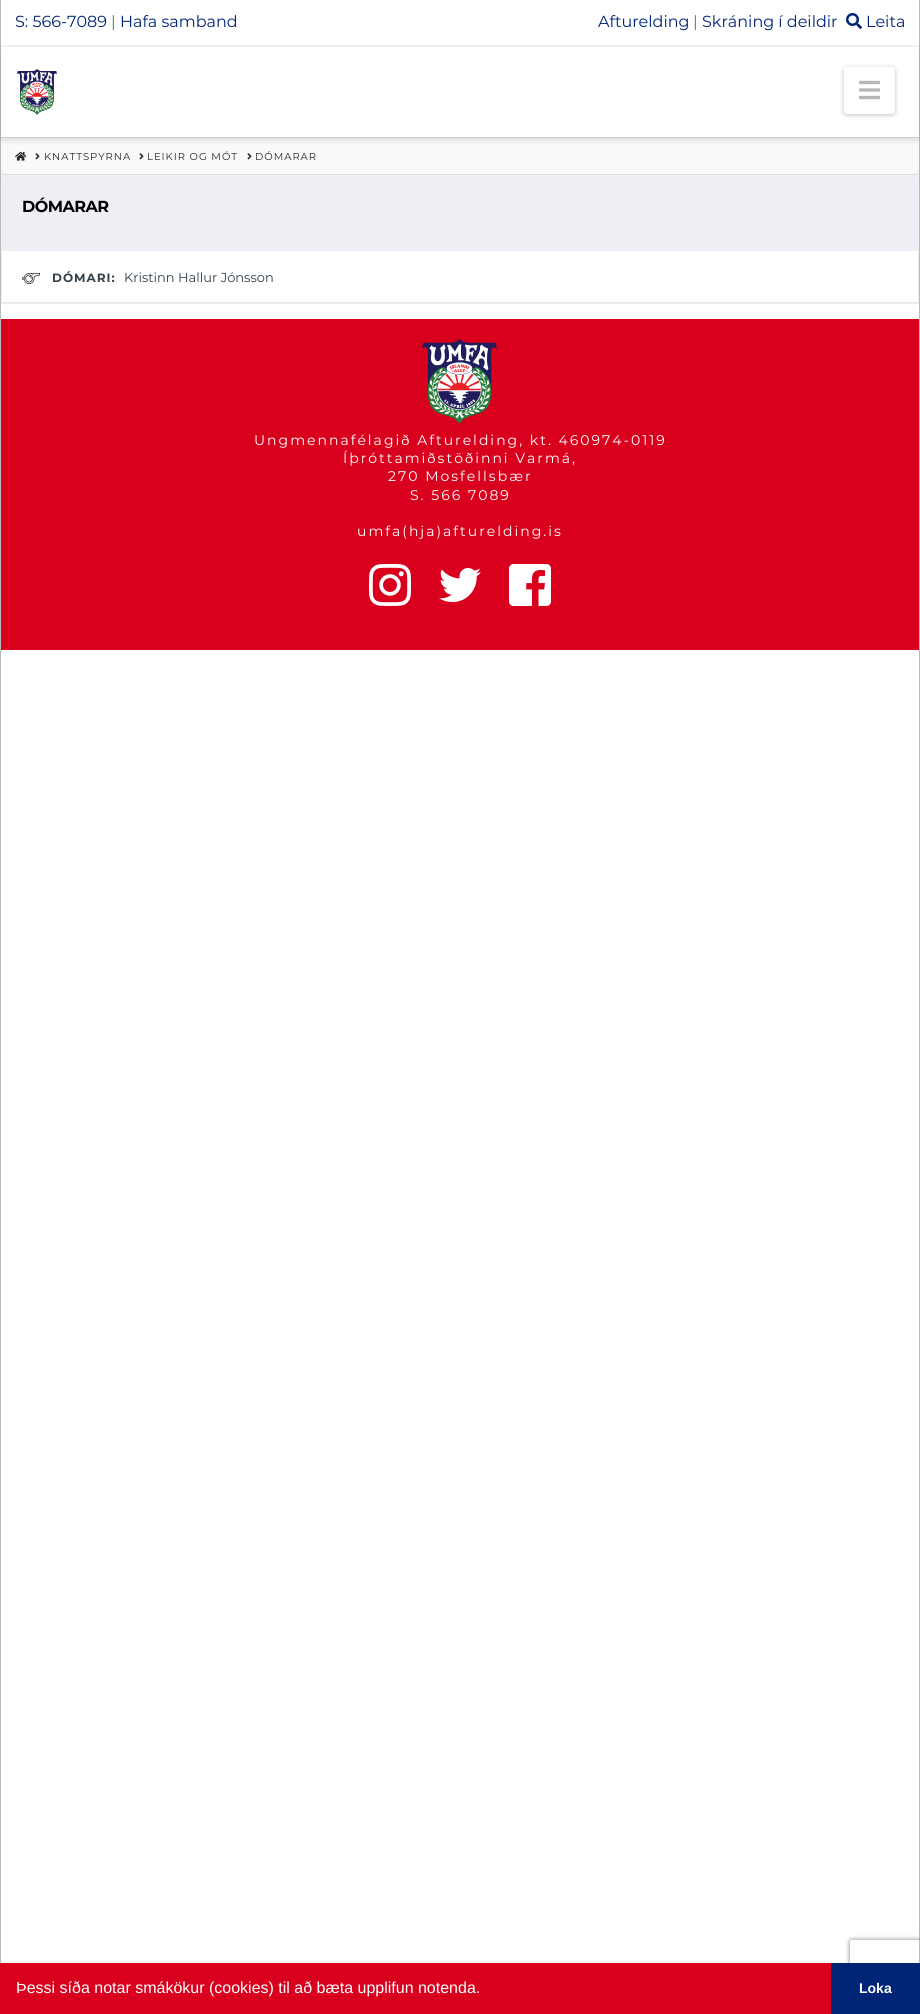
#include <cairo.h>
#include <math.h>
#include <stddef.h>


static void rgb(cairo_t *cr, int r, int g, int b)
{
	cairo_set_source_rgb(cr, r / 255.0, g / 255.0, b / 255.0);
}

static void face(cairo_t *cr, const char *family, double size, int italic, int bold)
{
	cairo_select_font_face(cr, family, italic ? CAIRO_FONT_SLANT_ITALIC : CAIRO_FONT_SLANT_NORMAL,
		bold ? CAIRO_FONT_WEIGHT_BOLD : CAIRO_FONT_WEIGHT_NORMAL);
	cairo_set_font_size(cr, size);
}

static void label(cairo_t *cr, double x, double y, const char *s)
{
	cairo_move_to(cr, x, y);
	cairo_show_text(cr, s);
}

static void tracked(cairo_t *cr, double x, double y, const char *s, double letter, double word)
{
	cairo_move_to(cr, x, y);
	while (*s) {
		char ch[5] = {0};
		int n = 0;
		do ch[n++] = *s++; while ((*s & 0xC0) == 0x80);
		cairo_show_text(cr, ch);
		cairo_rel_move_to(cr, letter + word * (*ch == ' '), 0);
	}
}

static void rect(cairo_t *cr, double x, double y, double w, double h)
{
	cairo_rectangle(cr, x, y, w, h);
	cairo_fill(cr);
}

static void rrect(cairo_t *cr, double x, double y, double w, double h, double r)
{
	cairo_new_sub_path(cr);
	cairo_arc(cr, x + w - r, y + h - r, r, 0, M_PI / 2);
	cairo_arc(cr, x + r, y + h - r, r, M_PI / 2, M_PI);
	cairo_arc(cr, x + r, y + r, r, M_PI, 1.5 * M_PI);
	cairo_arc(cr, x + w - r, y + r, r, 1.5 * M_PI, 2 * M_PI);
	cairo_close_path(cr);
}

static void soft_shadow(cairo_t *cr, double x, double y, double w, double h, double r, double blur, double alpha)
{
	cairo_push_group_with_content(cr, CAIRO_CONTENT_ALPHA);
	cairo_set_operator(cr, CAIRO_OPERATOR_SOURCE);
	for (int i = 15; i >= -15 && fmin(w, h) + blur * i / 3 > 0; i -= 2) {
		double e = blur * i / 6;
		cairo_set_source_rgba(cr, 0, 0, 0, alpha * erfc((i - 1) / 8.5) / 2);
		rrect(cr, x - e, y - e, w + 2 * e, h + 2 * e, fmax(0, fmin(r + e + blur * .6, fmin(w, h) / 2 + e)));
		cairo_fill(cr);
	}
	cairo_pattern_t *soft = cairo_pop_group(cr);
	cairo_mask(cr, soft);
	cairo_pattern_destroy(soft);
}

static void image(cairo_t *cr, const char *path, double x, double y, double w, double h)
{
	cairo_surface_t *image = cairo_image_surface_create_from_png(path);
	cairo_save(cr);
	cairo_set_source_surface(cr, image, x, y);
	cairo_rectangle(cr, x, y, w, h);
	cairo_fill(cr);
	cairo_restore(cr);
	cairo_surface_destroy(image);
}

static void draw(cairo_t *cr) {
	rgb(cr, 255, 255, 255);
	cairo_paint(cr);
	rgb(cr, 185, 185, 185);
	rect(cr, 919, 0, 1, 1963);
	rect(cr, 0, 0, 1, 1963);
	rgb(cr, 242, 242, 242);
	rect(cr, 1, 46, 918, 1);
	rgb(cr, 249, 249, 249);
	rect(cr, 1, 138, 918, 36);
	cairo_save(cr);
	cairo_set_fill_rule(cr, CAIRO_FILL_RULE_EVEN_ODD);
	cairo_new_path(cr);
	cairo_move_to(cr, 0, 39);
	cairo_line_to(cr, 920, 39);
	cairo_line_to(cr, 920, 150);
	cairo_line_to(cr, 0, 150);
	cairo_close_path(cr);
	cairo_move_to(cr, 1, 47);
	cairo_line_to(cr, 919, 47);
	cairo_line_to(cr, 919, 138);
	cairo_line_to(cr, 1, 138);
	cairo_close_path(cr);
	cairo_clip(cr);
	rgb(cr, 0, 0, 0);
	soft_shadow(cr, 1, 49, 918, 91, 0, 3, 0.13);
	cairo_restore(cr);
	rgb(cr, 242, 242, 242);
	rect(cr, 1, 45, 918, 1);
	face(cr, "Montserrat", 16, 0, 0);
	rgb(cr, 0, 37, 118);
	label(cr, 15, 27, "S: 566-7089");
	rgb(cr, 109, 109, 109);
	label(cr, 111, 27, "|");
	rgb(cr, 0, 37, 118);
	label(cr, 120, 27, "Hafa samband");
	label(cr, 598, 27, "Afturelding");
	rgb(cr, 109, 109, 109);
	label(cr, 693, 27, "|");
	rgb(cr, 0, 37, 118);
	label(cr, 702, 27, "Skráning í deildir");
	image(cr, "image0.png", 846, 13, 16, 16);
	label(cr, 866, 27, "Leita");
	rgb(cr, 204, 204, 204);
	rect(cr, 1, 137, 918, 1);
	image(cr, "image1.png", 17, 69, 40, 46);
	rgb(cr, 0, 0, 0);
	soft_shadow(cr, 844, 68, 51, 47, 4, 2.5, 0.25);
	rgb(cr, 255, 255, 255);
	rrect(cr, 844, 67, 51, 47, 4);
	cairo_fill(cr);
	image(cr, "image2.png", 859, 80, 21, 20);
	rgb(cr, 224, 224, 224);
	rect(cr, 1, 174, 918, 1);
	image(cr, "image3.png", 15, 151, 12, 10);
	image(cr, "image4.png", 35, 153, 5, 7);
	face(cr, "Montserrat", 10, 0, 0);
	rgb(cr, 39, 39, 39);
	tracked(cr, 44, 160, "KNATTSPYRNA", 1, 0);
	image(cr, "image4.png", 139, 153, 5, 7);
	tracked(cr, 147, 160, "LEIKIR OG MÓT", 1, 0);
	image(cr, "image4.png", 247, 153, 5, 7);
	tracked(cr, 255, 160, "DÓMARAR", 1, 0);
	rrect(cr, 1.5, 175.5, 917, 128, 1.5);
	rgb(cr, 238, 239, 244);
	cairo_set_line_width(cr, 1);
	cairo_stroke(cr);
	cairo_new_path(cr);
	cairo_move_to(cr, 4, 176);
	cairo_line_to(cr, 916, 176);
	cairo_curve_to(cr, 917, 176, 918, 177, 918, 178);
	cairo_line_to(cr, 918, 251);
	cairo_line_to(cr, 2, 251);
	cairo_line_to(cr, 2, 178);
	cairo_curve_to(cr, 2, 177, 3, 176, 4, 176);
	cairo_close_path(cr);
	cairo_fill(cr);
	face(cr, "Montserrat", 16, 0, 1);
	rgb(cr, 0, 0, 0);
	tracked(cr, 22, 212, "DÓMARAR", -0.5, 0);
	rgb(cr, 232, 232, 232);
	rect(cr, 2, 302, 916, 1);
	image(cr, "image5.png", 22, 273, 18, 11);
	face(cr, "Montserrat", 12, 0, 1);
	rgb(cr, 49, 64, 75);
	tracked(cr, 52, 282, "DÓMARI:", 1, 0);
	face(cr, "Montserrat", 13, 0, 0);
	label(cr, 124, 282, "Kristinn Hallur Jónsson");
	rgb(cr, 217, 0, 29);
	rect(cr, 1, 319, 918, 331);
	image(cr, "image6.png", 422, 339, 75, 85);
	face(cr, "Montserrat", 14, 0, 0);
	rgb(cr, 255, 255, 255);
	tracked(cr, 254, 445, "Ungmennafélagið Afturelding, kt. 460974-0119", 2, 0);
	tracked(cr, 343, 463, "Íþróttamiðstöðinni Varmá,", 2, 0);
	tracked(cr, 388, 481, "270 Mosfellsbær", 2, 0);
	tracked(cr, 410, 500, "S. 566 7089", 2, 0);
	tracked(cr, 357, 536, "umfa(hja)afturelding.is", 2, 0);
	image(cr, "image7.png", 369, 564, 42, 42);
	image(cr, "image8.png", 439, 568, 42, 35);
	image(cr, "image9.png", 509, 564, 42, 42);
	cairo_save(cr);
	cairo_set_fill_rule(cr, CAIRO_FILL_RULE_EVEN_ODD);
	cairo_new_path(cr);
	cairo_move_to(cr, 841, 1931);
	cairo_line_to(cr, 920, 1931);
	cairo_line_to(cr, 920, 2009);
	cairo_line_to(cr, 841, 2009);
	cairo_close_path(cr);
	cairo_move_to(cr, 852, 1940);
	cairo_line_to(cr, 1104, 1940);
	cairo_curve_to(cr, 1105, 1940, 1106, 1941, 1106, 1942);
	cairo_line_to(cr, 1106, 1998);
	cairo_curve_to(cr, 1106, 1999, 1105, 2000, 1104, 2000);
	cairo_line_to(cr, 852, 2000);
	cairo_curve_to(cr, 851, 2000, 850, 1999, 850, 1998);
	cairo_line_to(cr, 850, 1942);
	cairo_curve_to(cr, 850, 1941, 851, 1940, 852, 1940);
	cairo_close_path(cr);
	cairo_clip(cr);
	rgb(cr, 128, 128, 128);
	soft_shadow(cr, 850, 1940, 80, 60, 2, 2.5, 1);
	cairo_restore(cr);
	rgb(cr, 217, 0, 29);
	rect(cr, 0, 1963, 831, 51);
	face(cr, "Liberation Sans", 16, 0, 0);
	rgb(cr, 255, 255, 255);
	label(cr, 16, 1993, "Þessi síða notar smákökur (cookies) til að bæta upplifun notenda.");
	rgb(cr, 0, 37, 118);
	rect(cr, 831, 1963, 89, 51);
	face(cr, "Liberation Sans", 14, 0, 1);
	rgb(cr, 255, 255, 255);
	label(cr, 859, 1993, "Loka");
}

int main(void) {
	cairo_surface_t *surface = cairo_image_surface_create(CAIRO_FORMAT_RGB24, 920, 2014);
	cairo_t *cr = cairo_create(surface);
	cairo_font_options_t *options = cairo_font_options_create();
	cairo_font_options_set_hint_metrics(options, CAIRO_HINT_METRICS_OFF);
	cairo_font_options_set_hint_style(options, CAIRO_HINT_STYLE_NONE);
	cairo_set_font_options(cr, options);
	cairo_set_miter_limit(cr, 4);
	draw(cr);
	cairo_surface_write_to_png(surface, "render.png");
	cairo_font_options_destroy(options);
	cairo_destroy(cr);
	cairo_surface_destroy(surface);
	return 0;
}
